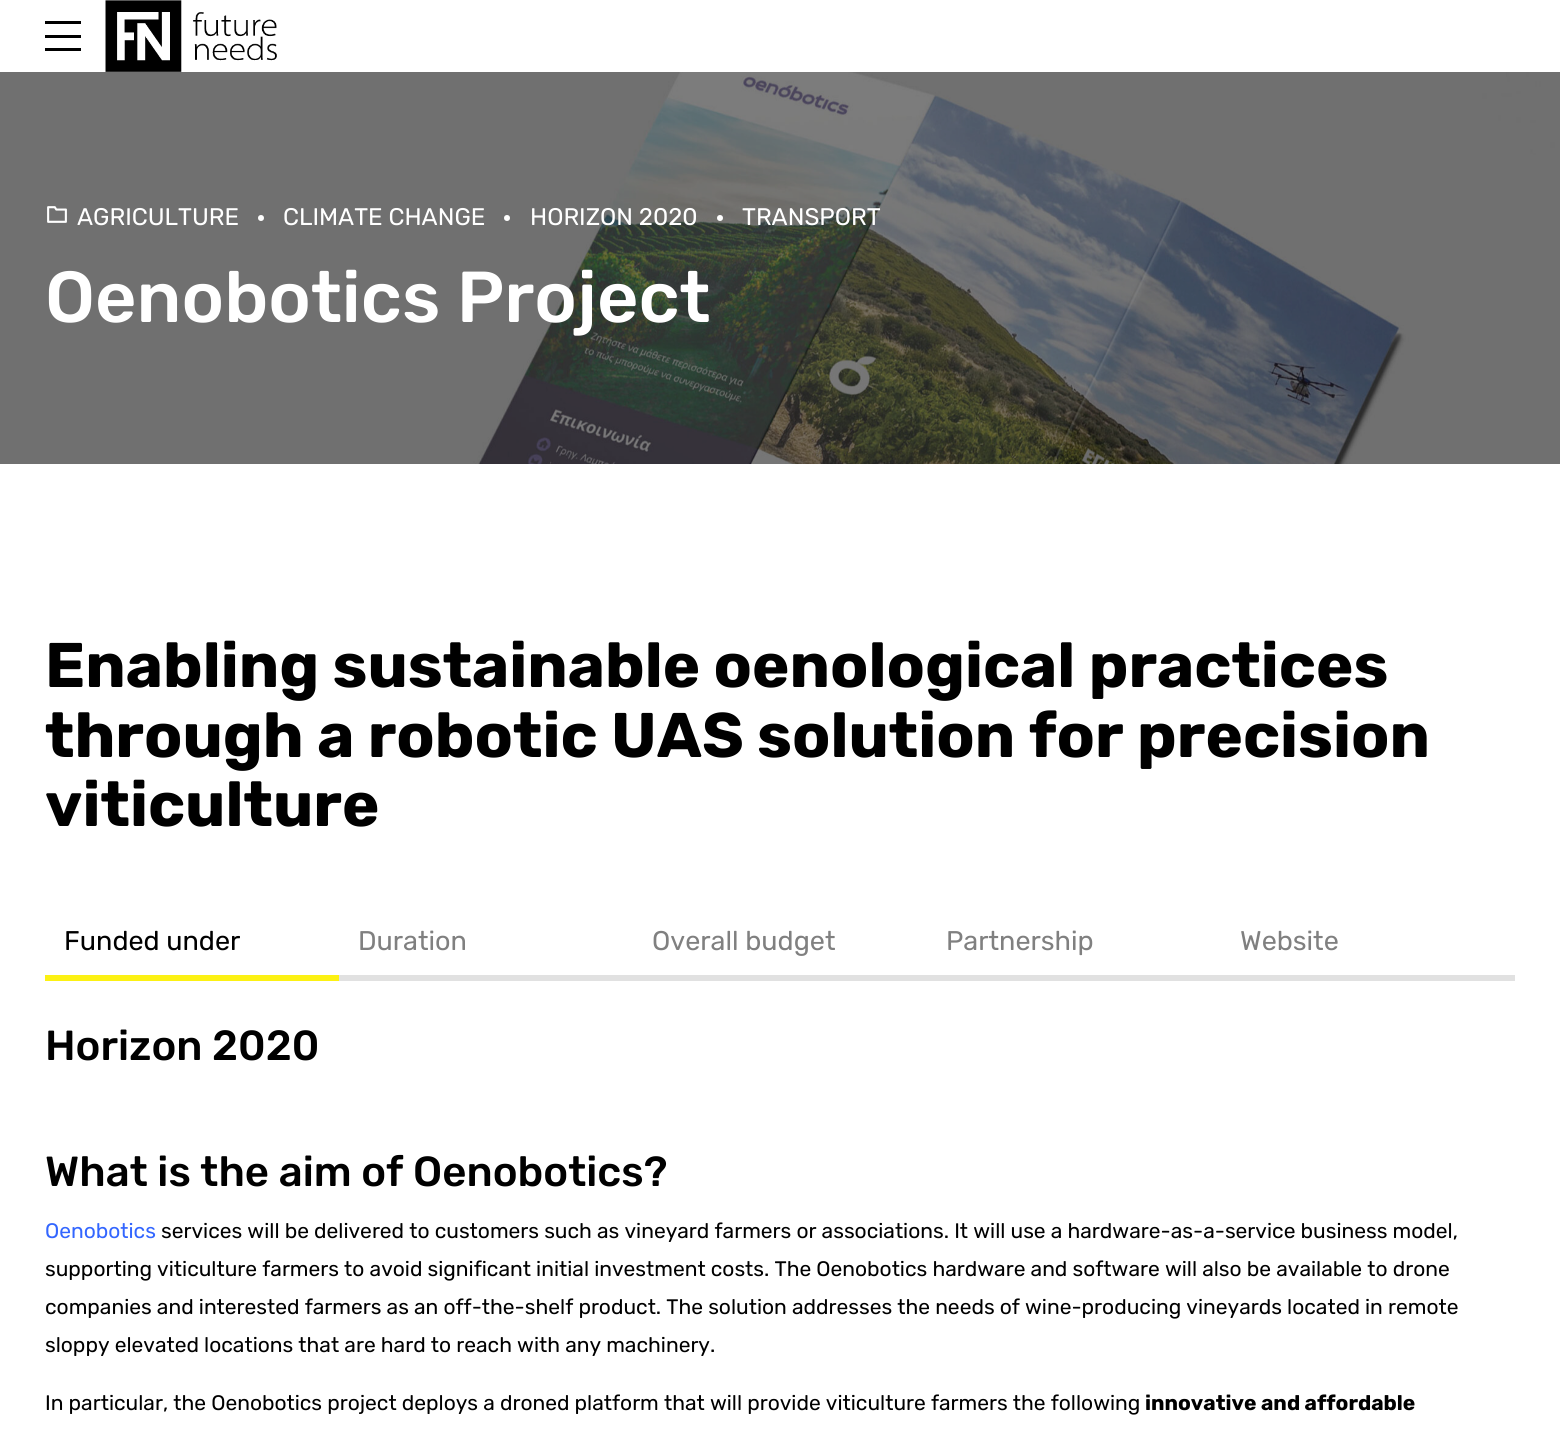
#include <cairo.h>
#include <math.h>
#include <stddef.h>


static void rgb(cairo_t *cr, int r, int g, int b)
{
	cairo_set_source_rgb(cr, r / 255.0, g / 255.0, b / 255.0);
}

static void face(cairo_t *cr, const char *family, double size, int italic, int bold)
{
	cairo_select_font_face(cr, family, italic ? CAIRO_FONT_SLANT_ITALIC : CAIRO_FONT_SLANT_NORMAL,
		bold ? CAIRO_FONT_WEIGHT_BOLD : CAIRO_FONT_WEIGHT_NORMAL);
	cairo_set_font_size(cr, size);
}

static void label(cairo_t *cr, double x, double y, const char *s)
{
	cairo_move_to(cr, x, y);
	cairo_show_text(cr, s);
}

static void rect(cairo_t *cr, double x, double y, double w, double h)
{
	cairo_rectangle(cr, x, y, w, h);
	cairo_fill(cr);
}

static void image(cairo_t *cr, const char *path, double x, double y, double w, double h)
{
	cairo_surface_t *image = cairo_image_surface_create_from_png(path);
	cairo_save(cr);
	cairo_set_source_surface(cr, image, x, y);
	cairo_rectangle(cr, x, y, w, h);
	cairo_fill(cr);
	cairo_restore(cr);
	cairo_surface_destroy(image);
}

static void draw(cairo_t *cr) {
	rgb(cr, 255, 255, 255);
	cairo_paint(cr);
	rgb(cr, 0, 0, 0);
	rect(cr, 45, 21, 36, 3);
	rect(cr, 45, 35, 36, 3);
	rect(cr, 45, 48, 36, 3);
	image(cr, "image0.png", 105, 0, 172, 72);
	image(cr, "image1.png", 0, 72, 1560, 392);
	image(cr, "image2.png", 47, 206, 20, 17);
	face(cr, "Rubik", 24, 0, 0);
	rgb(cr, 255, 255, 255);
	label(cr, 77, 225, "AGRICULTURE");
	cairo_new_path(cr);
	cairo_arc(cr, 261, 218, 3, 0, 2 * M_PI);
	cairo_fill(cr);
	label(cr, 283, 225, "CLIMATE CHANGE");
	cairo_new_path(cr);
	cairo_arc(cr, 507, 218, 3, 0, 2 * M_PI);
	cairo_fill(cr);
	label(cr, 530, 225, "HORIZON 2020");
	cairo_new_path(cr);
	cairo_arc(cr, 720, 218, 3, 0, 2 * M_PI);
	cairo_fill(cr);
	label(cr, 742, 225, "TRANSPORT");
	face(cr, "Rubik Medium", 72, 0, 0);
	label(cr, 45, 322, "Oenobotics Project");
	face(cr, "Rubik", 63, 0, 1);
	rgb(cr, 0, 0, 0);
	label(cr, 45, 687, "Enabling sustainable oenological practices");
	label(cr, 45, 757, "through a robotic UAS solution for precision");
	label(cr, 45, 826, "viticulture");
	rgb(cr, 252, 241, 19);
	rect(cr, 45, 975, 294, 6);
	face(cr, "Rubik", 27, 0, 0);
	rgb(cr, 0, 0, 0);
	label(cr, 64, 950, "Funded under");
	rgb(cr, 225, 225, 225);
	rect(cr, 339, 975, 1176, 6);
	rgb(cr, 128, 128, 128);
	label(cr, 358, 950, "Duration");
	label(cr, 652, 950, "Overall budget");
	label(cr, 946, 950, "Partnership");
	label(cr, 1240, 950, "Website");
	face(cr, "Rubik Medium", 42, 0, 0);
	rgb(cr, 0, 0, 0);
	label(cr, 45, 1060, "Horizon 2020");
	label(cr, 45, 1186, "What is the aim of Oenobotics?");
	face(cr, "Rubik", 21, 0, 0);
	rgb(cr, 51, 102, 255);
	label(cr, 45, 1238, "Oenobotics");
	rgb(cr, 0, 0, 0);
	label(cr, 161, 1238, "services will be delivered to customers such as vineyard farmers or associations. It will use a hardware-as-a-service business model,");
	label(cr, 45, 1276, "supporting viticulture farmers to avoid significant initial investment costs. The Oenobotics hardware and software will also be available to drone");
	label(cr, 45, 1314, "companies and interested farmers as an off-the-shelf product. The solution addresses the needs of wine-producing vineyards located in remote");
	label(cr, 45, 1352, "sloppy elevated locations that are hard to reach with any machinery.");
	label(cr, 45, 1410, "In particular, the Oenobotics project deploys a droned platform that will provide viticulture farmers the following");
	face(cr, "Rubik", 21, 0, 1);
	label(cr, 1145, 1410, "innovative and affordable");
}

int main(void) {
	cairo_surface_t *surface = cairo_image_surface_create(CAIRO_FORMAT_RGB24, 1560, 1439);
	cairo_t *cr = cairo_create(surface);
	cairo_font_options_t *options = cairo_font_options_create();
	cairo_font_options_set_hint_metrics(options, CAIRO_HINT_METRICS_OFF);
	cairo_font_options_set_hint_style(options, CAIRO_HINT_STYLE_NONE);
	cairo_set_font_options(cr, options);
	cairo_set_miter_limit(cr, 4);
	draw(cr);
	cairo_surface_write_to_png(surface, "render.png");
	cairo_font_options_destroy(options);
	cairo_destroy(cr);
	cairo_surface_destroy(surface);
	return 0;
}
